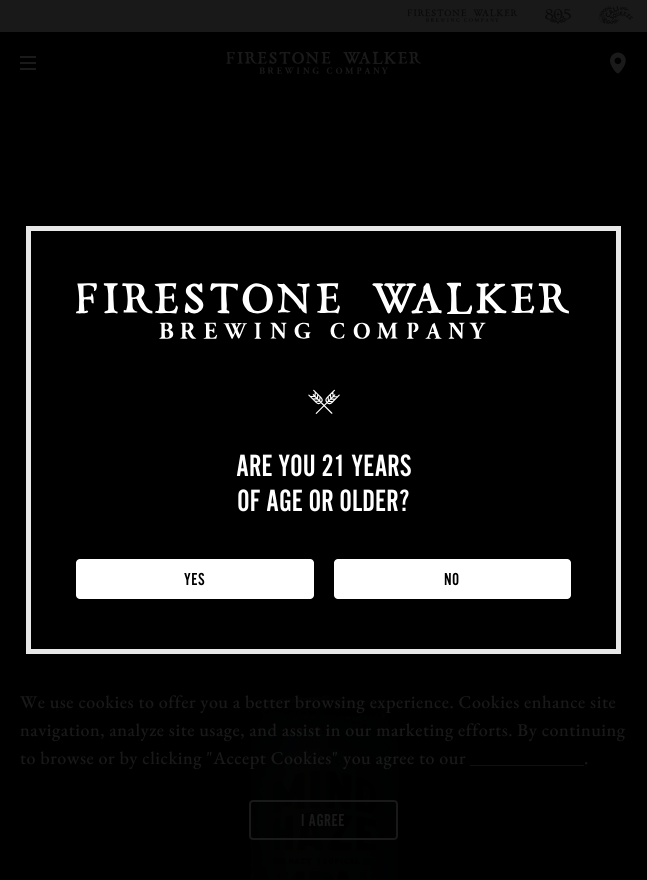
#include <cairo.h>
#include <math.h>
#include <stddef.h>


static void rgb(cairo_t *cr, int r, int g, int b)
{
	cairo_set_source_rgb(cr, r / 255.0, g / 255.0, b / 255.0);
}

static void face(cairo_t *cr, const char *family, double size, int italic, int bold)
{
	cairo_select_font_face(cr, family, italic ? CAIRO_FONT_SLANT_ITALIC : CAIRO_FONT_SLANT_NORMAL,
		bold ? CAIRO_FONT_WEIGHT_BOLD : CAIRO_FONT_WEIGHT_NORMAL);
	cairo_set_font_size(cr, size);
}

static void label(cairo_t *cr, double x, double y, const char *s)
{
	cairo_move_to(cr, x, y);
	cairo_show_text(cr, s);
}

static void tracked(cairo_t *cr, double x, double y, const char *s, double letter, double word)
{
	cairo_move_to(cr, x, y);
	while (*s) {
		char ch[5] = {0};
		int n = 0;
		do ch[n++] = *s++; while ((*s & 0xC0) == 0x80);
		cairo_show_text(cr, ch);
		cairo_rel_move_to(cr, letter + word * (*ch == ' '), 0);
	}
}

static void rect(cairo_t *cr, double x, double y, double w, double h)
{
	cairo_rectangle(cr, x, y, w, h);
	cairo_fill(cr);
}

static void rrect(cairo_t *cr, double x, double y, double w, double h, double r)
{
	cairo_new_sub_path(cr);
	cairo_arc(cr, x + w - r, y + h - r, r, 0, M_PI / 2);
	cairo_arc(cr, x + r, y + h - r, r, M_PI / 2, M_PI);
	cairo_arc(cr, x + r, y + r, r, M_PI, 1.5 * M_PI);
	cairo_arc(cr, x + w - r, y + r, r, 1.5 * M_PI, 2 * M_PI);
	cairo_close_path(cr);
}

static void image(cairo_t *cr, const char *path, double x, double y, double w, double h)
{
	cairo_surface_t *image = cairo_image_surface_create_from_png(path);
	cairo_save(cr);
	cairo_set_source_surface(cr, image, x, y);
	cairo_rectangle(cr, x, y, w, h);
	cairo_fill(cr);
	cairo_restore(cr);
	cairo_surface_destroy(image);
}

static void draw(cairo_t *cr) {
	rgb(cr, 0, 0, 0);
	cairo_paint(cr);
	rgb(cr, 25, 25, 25);
	rect(cr, 0, 0, 646, 32);
	image(cr, "image0.png", 407, 9, 111, 13);
	image(cr, "image1.png", 545, 9, 26, 15);
	rgb(cr, 24, 24, 24);
	rect(cr, 646, 0, 1, 32);
	image(cr, "image2.png", 598, 6, 35, 18);
	image(cr, "image3.png", 20, 56, 16, 14);
	image(cr, "image4.png", 226, 51, 195, 23);
	image(cr, "image5.png", 610, 52, 16, 22);
	image(cr, "image6.png", 250, 695, 149, 185);
	cairo_rectangle(cr, 28.5, 228.5, 590, 423);
	rgb(cr, 232, 232, 232);
	cairo_set_line_width(cr, 5);
	cairo_stroke(cr);
	image(cr, "image7.png", 76, 282, 493, 57);
	image(cr, "image8.png", 308, 389, 32, 25);
	face(cr, "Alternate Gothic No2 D", 32, 0, 0);
	rgb(cr, 255, 255, 255);
	label(cr, 236, 476, "ARE YOU 21 YEARS");
	label(cr, 237, 511, "OF AGE OR OLDER?");
	rrect(cr, 76, 559, 238, 40, 4);
	cairo_fill(cr);
	face(cr, "Alternate Gothic No2 D", 18, 0, 0);
	rgb(cr, 0, 0, 0);
	tracked(cr, 184, 585, "YES", 0.5, 0);
	rgb(cr, 255, 255, 255);
	rrect(cr, 334, 559, 237, 40, 4);
	cairo_fill(cr);
	rgb(cr, 0, 0, 0);
	tracked(cr, 444, 585, "NO", 0.5, 0);
	face(cr, "EB Garamond Medium", 18, 0, 0);
	rgb(cr, 25, 25, 25);
	tracked(cr, 20, 708, "We use cookies to offer you a better browsing experience. Cookies enhance site", 0.5, 0);
	tracked(cr, 20, 736, "navigation, analyze site usage, and assist in our marketing efforts. By continuing", 0.5, 0);
	tracked(cr, 20, 764, "to browse or by clicking \"Accept Cookies\" you agree to our", 0.5, 0);
	tracked(cr, 584, 764, ".", 0.5, 0);
	rgb(cr, 15, 15, 15);
	rect(cr, 470, 765, 114, 1);
	rrect(cr, 250, 801, 147, 38, 3);
	rgb(cr, 25, 25, 25);
	cairo_set_line_width(cr, 2);
	cairo_stroke(cr);
	face(cr, "Alternate Gothic No2 D", 18, 0, 0);
	tracked(cr, 301, 826, "I AGREE", 0.5, 0);
}

int main(void) {
	cairo_surface_t *surface = cairo_image_surface_create(CAIRO_FORMAT_RGB24, 647, 880);
	cairo_t *cr = cairo_create(surface);
	cairo_font_options_t *options = cairo_font_options_create();
	cairo_font_options_set_hint_metrics(options, CAIRO_HINT_METRICS_OFF);
	cairo_font_options_set_hint_style(options, CAIRO_HINT_STYLE_NONE);
	cairo_set_font_options(cr, options);
	cairo_set_miter_limit(cr, 4);
	draw(cr);
	cairo_surface_write_to_png(surface, "render.png");
	cairo_font_options_destroy(options);
	cairo_destroy(cr);
	cairo_surface_destroy(surface);
	return 0;
}
